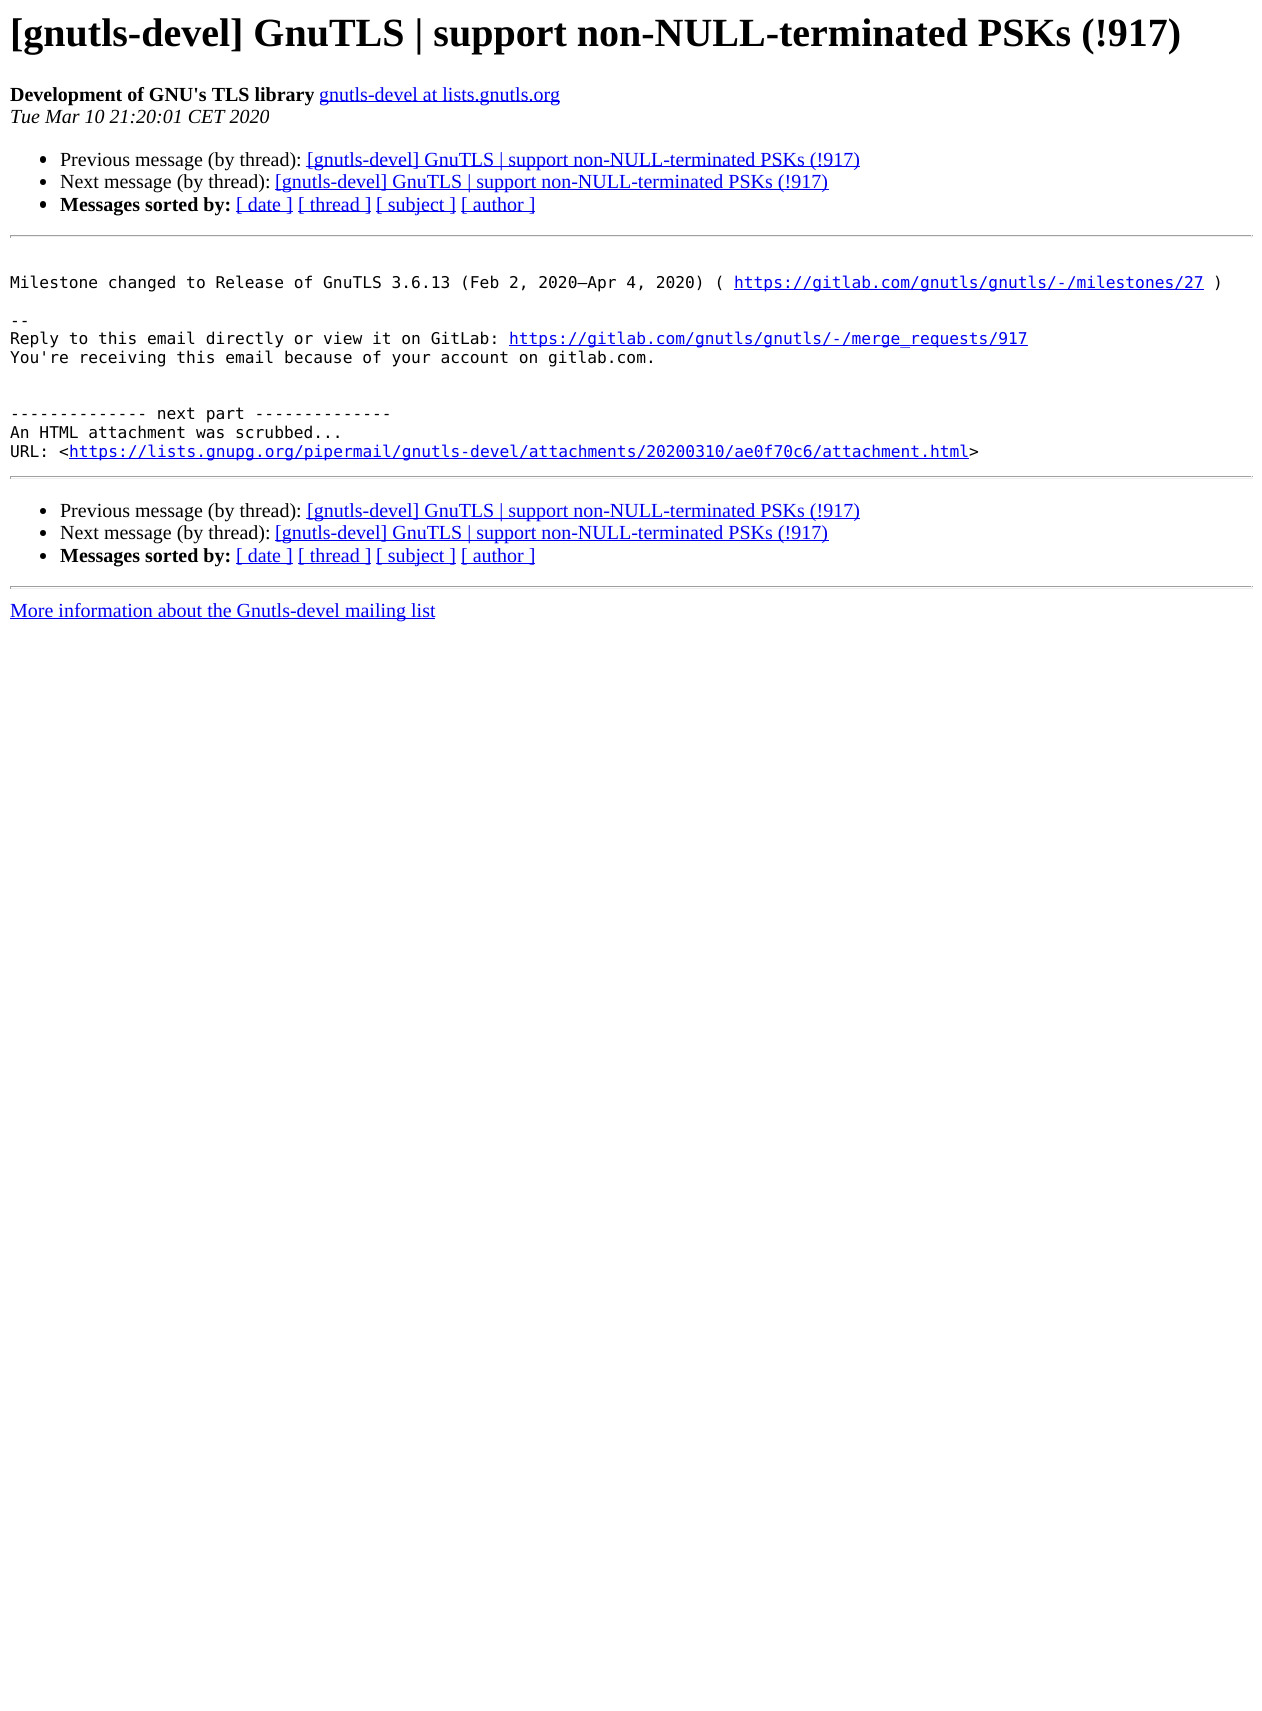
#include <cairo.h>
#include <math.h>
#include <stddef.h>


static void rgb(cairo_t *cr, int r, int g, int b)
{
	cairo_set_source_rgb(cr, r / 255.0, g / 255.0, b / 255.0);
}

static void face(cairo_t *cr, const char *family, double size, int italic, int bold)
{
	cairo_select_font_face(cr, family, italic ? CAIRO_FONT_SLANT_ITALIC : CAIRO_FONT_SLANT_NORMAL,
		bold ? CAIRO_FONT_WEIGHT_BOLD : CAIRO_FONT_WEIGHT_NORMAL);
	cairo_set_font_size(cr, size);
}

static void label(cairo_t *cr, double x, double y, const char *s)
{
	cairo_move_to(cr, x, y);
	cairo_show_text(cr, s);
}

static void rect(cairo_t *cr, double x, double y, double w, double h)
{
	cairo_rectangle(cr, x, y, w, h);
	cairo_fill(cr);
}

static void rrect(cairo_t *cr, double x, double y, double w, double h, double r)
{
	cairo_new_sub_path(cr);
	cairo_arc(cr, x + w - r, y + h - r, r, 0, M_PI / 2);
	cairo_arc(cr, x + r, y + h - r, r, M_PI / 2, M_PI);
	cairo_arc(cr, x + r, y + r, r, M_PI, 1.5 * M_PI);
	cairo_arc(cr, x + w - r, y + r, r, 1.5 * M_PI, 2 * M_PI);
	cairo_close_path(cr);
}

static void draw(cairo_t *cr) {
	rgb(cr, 255, 255, 255);
	cairo_paint(cr);
	face(cr, "Liberation Serif", 40, 0, 1);
	rgb(cr, 0, 0, 0);
	label(cr, 10, 46, "[gnutls-devel] GnuTLS | support non-NULL-terminated PSKs (!917)");
	face(cr, "Liberation Serif", 20, 0, 1);
	label(cr, 10, 101, "Development of GNU's TLS library");
	rgb(cr, 0, 0, 238);
	rect(cr, 320, 101, 240, 1);
	face(cr, "Liberation Serif", 20, 0, 0);
	label(cr, 319, 101, "gnutls-devel at lists.gnutls.org");
	face(cr, "Liberation Serif", 20, 1, 0);
	rgb(cr, 0, 0, 0);
	label(cr, 10, 123, "Tue Mar 10 21:20:01 CET 2020");
	rrect(cr, 40, 156, 6, 7, 3);
	cairo_fill(cr);
	face(cr, "Liberation Serif", 20, 0, 0);
	label(cr, 60, 166, "Previous message (by thread):");
	rgb(cr, 0, 0, 238);
	rect(cr, 306, 166, 554, 1);
	label(cr, 307, 166, "[gnutls-devel] GnuTLS | support non-NULL-terminated PSKs (!917)");
	rgb(cr, 0, 0, 0);
	cairo_new_path(cr);
	cairo_arc(cr, 43, 182, 3, 0, 2 * M_PI);
	cairo_fill(cr);
	label(cr, 60, 188, "Next message (by thread):");
	rgb(cr, 0, 0, 238);
	rect(cr, 275, 189, 554, 1);
	label(cr, 275, 188, "[gnutls-devel] GnuTLS | support non-NULL-terminated PSKs (!917)");
	rgb(cr, 0, 0, 0);
	rrect(cr, 40, 201, 6, 7, 3);
	cairo_fill(cr);
	face(cr, "Liberation Serif", 20, 0, 1);
	label(cr, 60, 211, "Messages sorted by:");
	rgb(cr, 0, 0, 238);
	rect(cr, 236, 211, 57, 1);
	face(cr, "Liberation Serif", 20, 0, 0);
	label(cr, 236, 211, "[ date ]");
	rect(cr, 298, 211, 73, 1);
	label(cr, 298, 211, "[ thread ]");
	rect(cr, 376, 211, 80, 1);
	label(cr, 376, 211, "[ subject ]");
	rect(cr, 461, 211, 74, 1);
	label(cr, 461, 211, "[ author ]");
	rgb(cr, 159, 159, 159);
	rect(cr, 10, 235, 1243, 1);
	rgb(cr, 238, 238, 238);
	rect(cr, 1251, 235, 1, 3);
	rect(cr, 10, 236, 1243, 1);
	rgb(cr, 159, 159, 159);
	rect(cr, 10, 235, 1, 3);
	face(cr, "DejaVu Sans Mono", 16.25, 0, 0);
	rgb(cr, 0, 0, 0);
	label(cr, 10, 288, "Milestone changed to Release of GnuTLS 3.6.13 (Feb 2, 2020–Apr 4, 2020) (");
	rgb(cr, 0, 0, 238);
	rect(cr, 734, 289, 470, 1);
	label(cr, 734, 288, "https://gitlab.com/gnutls/gnutls/-/milestones/27");
	rgb(cr, 0, 0, 0);
	label(cr, 1213, 288, ")");
	label(cr, 10, 326, "--");
	label(cr, 10, 344, "Reply to this email directly or view it on GitLab:");
	rgb(cr, 0, 0, 238);
	rect(cr, 509, 345, 519, 1);
	label(cr, 509, 344, "https://gitlab.com/gnutls/gnutls/-/merge_requests/917");
	rgb(cr, 0, 0, 0);
	label(cr, 10, 363, "You're receiving this email because of your account on gitlab.com.");
	label(cr, 10, 419, "-------------- next part --------------");
	label(cr, 10, 438, "An HTML attachment was scrubbed...");
	label(cr, 10, 457, "URL: <");
	rgb(cr, 0, 0, 238);
	rect(cr, 69, 458, 900, 1);
	label(cr, 69, 457, "https://lists.gnupg.org/pipermail/gnutls-devel/attachments/20200310/ae0f70c6/attachment.html");
	rgb(cr, 0, 0, 0);
	label(cr, 969, 457, ">");
	rgb(cr, 159, 159, 159);
	rect(cr, 10, 476, 1243, 1);
	rgb(cr, 238, 238, 238);
	rect(cr, 1251, 476, 1, 3);
	rect(cr, 10, 478, 1243, 1);
	rgb(cr, 159, 159, 159);
	rect(cr, 10, 476, 1, 3);
	rgb(cr, 0, 0, 0);
	cairo_new_path(cr);
	cairo_arc(cr, 43, 511, 3, 0, 2 * M_PI);
	cairo_fill(cr);
	face(cr, "Liberation Serif", 20, 0, 0);
	label(cr, 60, 517, "Previous message (by thread):");
	rgb(cr, 0, 0, 238);
	rect(cr, 306, 518, 554, 1);
	label(cr, 307, 517, "[gnutls-devel] GnuTLS | support non-NULL-terminated PSKs (!917)");
	rgb(cr, 0, 0, 0);
	cairo_new_path(cr);
	cairo_arc(cr, 43, 533, 3, 0, 2 * M_PI);
	cairo_fill(cr);
	label(cr, 60, 539, "Next message (by thread):");
	rgb(cr, 0, 0, 238);
	rect(cr, 275, 540, 554, 1);
	label(cr, 275, 539, "[gnutls-devel] GnuTLS | support non-NULL-terminated PSKs (!917)");
	rgb(cr, 0, 0, 0);
	cairo_new_path(cr);
	cairo_arc(cr, 43, 556, 3, 0, 2 * M_PI);
	cairo_fill(cr);
	face(cr, "Liberation Serif", 20, 0, 1);
	label(cr, 60, 562, "Messages sorted by:");
	rgb(cr, 0, 0, 238);
	rect(cr, 236, 563, 57, 1);
	face(cr, "Liberation Serif", 20, 0, 0);
	label(cr, 236, 562, "[ date ]");
	rect(cr, 298, 563, 73, 1);
	label(cr, 298, 562, "[ thread ]");
	rect(cr, 376, 563, 80, 1);
	label(cr, 376, 562, "[ subject ]");
	rect(cr, 461, 563, 74, 1);
	label(cr, 461, 562, "[ author ]");
	rgb(cr, 159, 159, 159);
	rect(cr, 10, 586, 1243, 1);
	rgb(cr, 238, 238, 238);
	rect(cr, 1251, 586, 1, 3);
	rect(cr, 10, 588, 1243, 1);
	rgb(cr, 159, 159, 159);
	rect(cr, 10, 586, 1, 3);
	rgb(cr, 0, 0, 238);
	rect(cr, 10, 618, 425, 1);
	label(cr, 10, 617, "More information about the Gnutls-devel mailing list");
}

int main(void) {
	cairo_surface_t *surface = cairo_image_surface_create(CAIRO_FORMAT_RGB24, 1262, 1711);
	cairo_t *cr = cairo_create(surface);
	cairo_font_options_t *options = cairo_font_options_create();
	cairo_font_options_set_hint_metrics(options, CAIRO_HINT_METRICS_OFF);
	cairo_font_options_set_hint_style(options, CAIRO_HINT_STYLE_NONE);
	cairo_set_font_options(cr, options);
	cairo_set_miter_limit(cr, 4);
	draw(cr);
	cairo_surface_write_to_png(surface, "render.png");
	cairo_font_options_destroy(options);
	cairo_destroy(cr);
	cairo_surface_destroy(surface);
	return 0;
}
